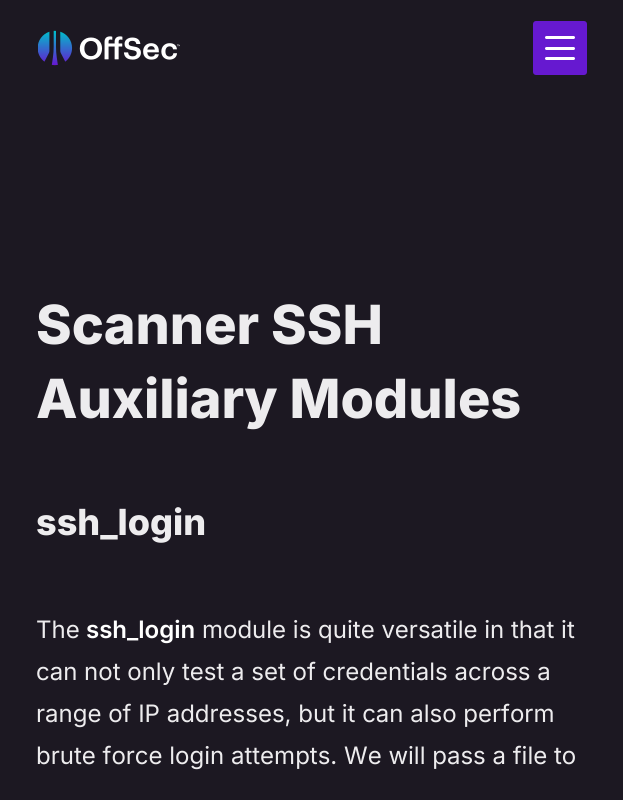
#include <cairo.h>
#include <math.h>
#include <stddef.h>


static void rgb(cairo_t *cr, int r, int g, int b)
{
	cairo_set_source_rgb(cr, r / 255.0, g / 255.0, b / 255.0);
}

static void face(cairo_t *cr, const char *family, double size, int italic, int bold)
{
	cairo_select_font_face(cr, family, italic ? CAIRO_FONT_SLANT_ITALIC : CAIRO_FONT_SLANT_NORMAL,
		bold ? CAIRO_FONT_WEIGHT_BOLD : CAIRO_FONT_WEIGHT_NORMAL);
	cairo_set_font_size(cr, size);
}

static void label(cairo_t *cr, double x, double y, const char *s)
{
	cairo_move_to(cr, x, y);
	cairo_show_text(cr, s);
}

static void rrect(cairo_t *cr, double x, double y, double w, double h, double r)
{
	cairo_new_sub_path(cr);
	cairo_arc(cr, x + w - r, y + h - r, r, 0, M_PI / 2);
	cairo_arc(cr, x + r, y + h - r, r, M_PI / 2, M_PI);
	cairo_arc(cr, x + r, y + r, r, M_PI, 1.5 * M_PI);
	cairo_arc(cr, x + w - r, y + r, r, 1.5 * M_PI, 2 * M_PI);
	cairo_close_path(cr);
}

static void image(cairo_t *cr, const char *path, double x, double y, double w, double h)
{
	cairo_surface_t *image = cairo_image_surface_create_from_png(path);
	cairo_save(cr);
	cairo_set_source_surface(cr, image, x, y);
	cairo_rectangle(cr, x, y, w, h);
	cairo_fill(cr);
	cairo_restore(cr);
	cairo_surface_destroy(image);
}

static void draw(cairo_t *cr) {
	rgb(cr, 28, 24, 34);
	cairo_paint(cr);
	image(cr, "image0.png", 38, 30, 142, 36);
	rgb(cr, 102, 25, 208);
	rrect(cr, 533, 21, 54, 54, 3);
	cairo_fill(cr);
	rgb(cr, 255, 255, 255);
	rrect(cr, 545, 36, 30, 3, 1.5);
	cairo_fill(cr);
	rrect(cr, 545, 47, 30, 3, 1.5);
	cairo_fill(cr);
	rrect(cr, 545, 57, 30, 3, 1.5);
	cairo_fill(cr);
	face(cr, "Inter ExtraBold", 54, 0, 0);
	rgb(cr, 237, 236, 238);
	label(cr, 36, 344, "Scanner SSH");
	label(cr, 36, 418, "Auxiliary Modules");
	face(cr, "Inter ExtraBold", 36, 0, 0);
	label(cr, 36, 535, "ssh_login");
	face(cr, "Inter", 24, 0, 0);
	label(cr, 36, 638, "The");
	face(cr, "Inter SemiBold", 24, 0, 0);
	rgb(cr, 255, 255, 255);
	label(cr, 86, 638, "ssh_login");
	face(cr, "Inter", 24, 0, 0);
	rgb(cr, 237, 236, 238);
	label(cr, 202, 638, "module is quite versatile in that it");
	label(cr, 36, 680, "can not only test a set of credentials across a");
	label(cr, 36, 722, "range of IP addresses, but it can also perform");
	label(cr, 36, 764, "brute force login attempts. We will pass a file to");
}

int main(void) {
	cairo_surface_t *surface = cairo_image_surface_create(CAIRO_FORMAT_RGB24, 623, 800);
	cairo_t *cr = cairo_create(surface);
	cairo_font_options_t *options = cairo_font_options_create();
	cairo_font_options_set_hint_metrics(options, CAIRO_HINT_METRICS_OFF);
	cairo_font_options_set_hint_style(options, CAIRO_HINT_STYLE_NONE);
	cairo_set_font_options(cr, options);
	cairo_set_miter_limit(cr, 4);
	draw(cr);
	cairo_surface_write_to_png(surface, "render.png");
	cairo_font_options_destroy(options);
	cairo_destroy(cr);
	cairo_surface_destroy(surface);
	return 0;
}
